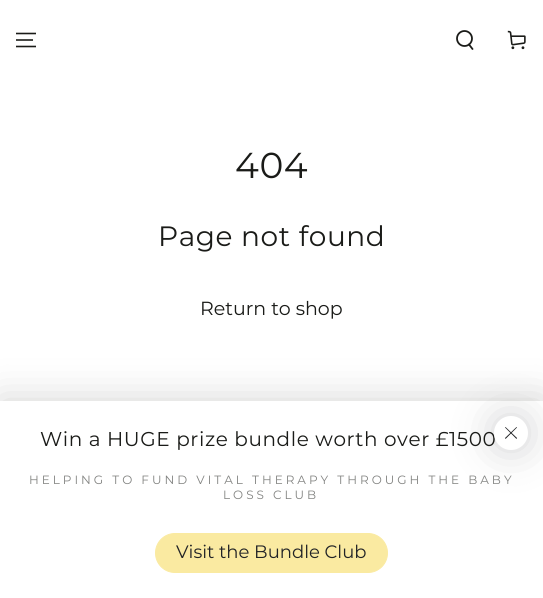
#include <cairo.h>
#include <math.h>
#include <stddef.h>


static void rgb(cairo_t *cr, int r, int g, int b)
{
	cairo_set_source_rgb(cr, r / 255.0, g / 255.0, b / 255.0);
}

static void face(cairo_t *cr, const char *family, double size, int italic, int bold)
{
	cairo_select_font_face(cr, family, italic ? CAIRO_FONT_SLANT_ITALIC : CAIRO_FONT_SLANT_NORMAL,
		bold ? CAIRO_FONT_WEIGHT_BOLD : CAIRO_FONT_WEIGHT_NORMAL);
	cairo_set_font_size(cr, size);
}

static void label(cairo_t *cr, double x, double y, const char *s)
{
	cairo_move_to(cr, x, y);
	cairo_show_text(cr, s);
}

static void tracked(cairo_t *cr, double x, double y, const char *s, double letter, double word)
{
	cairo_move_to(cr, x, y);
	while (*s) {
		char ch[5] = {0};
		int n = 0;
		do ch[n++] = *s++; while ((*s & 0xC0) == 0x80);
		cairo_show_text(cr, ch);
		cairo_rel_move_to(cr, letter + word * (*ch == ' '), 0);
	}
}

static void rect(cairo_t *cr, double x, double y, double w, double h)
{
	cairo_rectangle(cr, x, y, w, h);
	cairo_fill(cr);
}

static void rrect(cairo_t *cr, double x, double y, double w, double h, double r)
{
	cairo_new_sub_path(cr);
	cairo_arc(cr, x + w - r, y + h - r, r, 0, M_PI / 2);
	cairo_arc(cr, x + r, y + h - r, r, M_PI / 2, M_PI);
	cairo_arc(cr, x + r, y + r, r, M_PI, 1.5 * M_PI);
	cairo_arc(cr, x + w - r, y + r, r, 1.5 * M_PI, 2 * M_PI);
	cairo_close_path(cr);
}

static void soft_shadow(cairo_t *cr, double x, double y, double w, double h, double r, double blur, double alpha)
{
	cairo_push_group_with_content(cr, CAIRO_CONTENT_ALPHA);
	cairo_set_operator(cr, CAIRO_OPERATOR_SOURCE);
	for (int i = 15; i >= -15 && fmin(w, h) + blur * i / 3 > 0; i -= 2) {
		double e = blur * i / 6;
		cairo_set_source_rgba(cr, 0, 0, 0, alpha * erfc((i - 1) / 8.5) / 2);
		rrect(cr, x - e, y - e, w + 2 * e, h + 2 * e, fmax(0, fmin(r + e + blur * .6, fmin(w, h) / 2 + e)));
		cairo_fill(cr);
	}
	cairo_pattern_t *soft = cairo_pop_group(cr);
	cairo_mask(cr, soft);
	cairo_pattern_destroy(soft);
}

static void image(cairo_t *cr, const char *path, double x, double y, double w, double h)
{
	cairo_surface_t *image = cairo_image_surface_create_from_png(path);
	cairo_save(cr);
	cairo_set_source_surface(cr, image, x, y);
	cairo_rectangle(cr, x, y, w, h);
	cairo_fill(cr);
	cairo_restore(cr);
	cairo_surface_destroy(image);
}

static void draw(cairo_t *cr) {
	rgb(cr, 255, 255, 255);
	cairo_paint(cr);
	cairo_new_path(cr);
	cairo_move_to(cr, 16, 46.5);
	cairo_line_to(cr, 36, 46.5);
	cairo_move_to(cr, 16, 40);
	cairo_line_to(cr, 33, 40);
	cairo_move_to(cr, 16, 33.5);
	cairo_line_to(cr, 36, 33.5);
	rgb(cr, 26, 27, 24);
	cairo_set_line_width(cr, 1.6);
	cairo_stroke(cr);
	cairo_arc(cr, 464.5, 38.5, 7.5, 0, 2 * M_PI);
	cairo_set_line_width(cr, 1.8);
	cairo_stroke(cr);
	cairo_new_path(cr);
	cairo_move_to(cr, 469, 44.5);
	cairo_line_to(cr, 472.5, 49);
	cairo_set_line_cap(cr, CAIRO_LINE_CAP_ROUND);
	cairo_stroke(cr);
	image(cr, "image0.png", 507, 30, 19, 20);
	face(cr, "Montserrat", 36, 0, 0);
	tracked(cr, 235, 178, "404", 0.6, 0);
	face(cr, "Montserrat", 28, 0, 0);
	tracked(cr, 158, 246, "Page not found", 0.6, 0);
	face(cr, "Montserrat", 19, 0, 0);
	label(cr, 200, 315, "Return to shop");
	rgb(cr, 26, 27, 24);
	soft_shadow(cr, 0, 401, 543, 197, 0, 20, 0.2);
	rgb(cr, 255, 255, 255);
	rect(cr, 0, 401, 543, 197);
	rgb(cr, 33, 35, 38);
	soft_shadow(cr, 494, 416, 34, 34, 17, 20, 0.2);
	face(cr, "Montserrat", 20, 0, 0);
	rgb(cr, 26, 27, 24);
	tracked(cr, 40, 446, "Win a HUGE prize bundle worth over £1500", 0.6, 0);
	rgb(cr, 255, 255, 255);
	cairo_new_path(cr);
	cairo_arc(cr, 511, 433, 17, 0, 2 * M_PI);
	cairo_fill(cr);
	rgb(cr, 33, 35, 38);
	cairo_new_path(cr);
	cairo_move_to(cr, 505.5, 427);
	cairo_line_to(cr, 517, 438);
	cairo_line_to(cr, 516.5, 439);
	cairo_line_to(cr, 505, 427.5);
	cairo_close_path(cr);
	cairo_fill(cr);
	cairo_new_path(cr);
	cairo_move_to(cr, 516.5, 427);
	cairo_line_to(cr, 517, 427.5);
	cairo_line_to(cr, 505.5, 439);
	cairo_line_to(cr, 505, 438);
	cairo_close_path(cr);
	cairo_fill(cr);
	face(cr, "Montserrat", 12, 0, 0);
	rgb(cr, 129, 130, 128);
	tracked(cr, 29, 484, "HELPING TO FUND VITAL THERAPY THROUGH THE BABY", 3, 0);
	tracked(cr, 223, 499, "LOSS CLUB", 3, 0);
	rgb(cr, 250, 234, 161);
	rrect(cr, 155.5, 533.5, 232, 39, 19.5);
	cairo_fill_preserve(cr);
	cairo_set_line_width(cr, 1);
	cairo_set_line_cap(cr, CAIRO_LINE_CAP_BUTT);
	cairo_stroke(cr);
	face(cr, "Montserrat", 18, 0, 0);
	rgb(cr, 33, 35, 38);
	label(cr, 176, 558, "Visit the Bundle Club");
}

int main(void) {
	cairo_surface_t *surface = cairo_image_surface_create(CAIRO_FORMAT_RGB24, 543, 598);
	cairo_t *cr = cairo_create(surface);
	cairo_font_options_t *options = cairo_font_options_create();
	cairo_font_options_set_hint_metrics(options, CAIRO_HINT_METRICS_OFF);
	cairo_font_options_set_hint_style(options, CAIRO_HINT_STYLE_NONE);
	cairo_set_font_options(cr, options);
	cairo_set_miter_limit(cr, 4);
	draw(cr);
	cairo_surface_write_to_png(surface, "render.png");
	cairo_font_options_destroy(options);
	cairo_destroy(cr);
	cairo_surface_destroy(surface);
	return 0;
}
